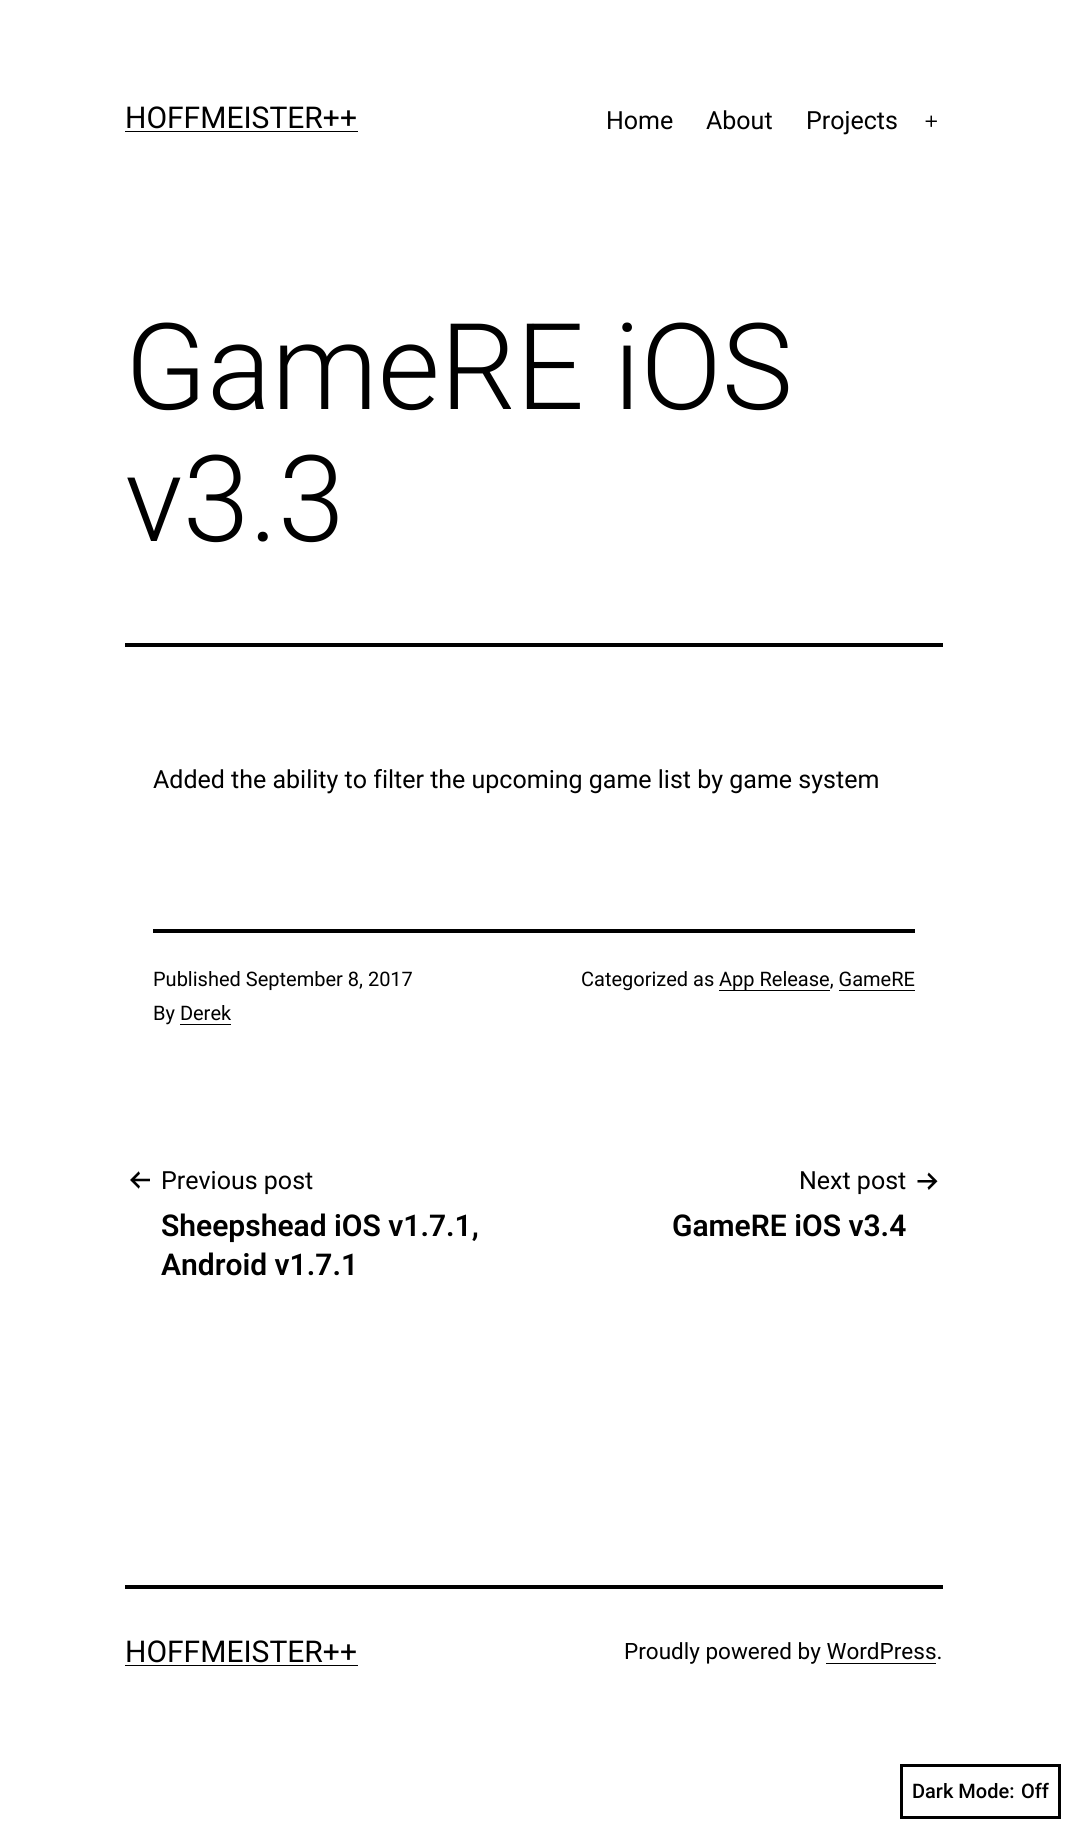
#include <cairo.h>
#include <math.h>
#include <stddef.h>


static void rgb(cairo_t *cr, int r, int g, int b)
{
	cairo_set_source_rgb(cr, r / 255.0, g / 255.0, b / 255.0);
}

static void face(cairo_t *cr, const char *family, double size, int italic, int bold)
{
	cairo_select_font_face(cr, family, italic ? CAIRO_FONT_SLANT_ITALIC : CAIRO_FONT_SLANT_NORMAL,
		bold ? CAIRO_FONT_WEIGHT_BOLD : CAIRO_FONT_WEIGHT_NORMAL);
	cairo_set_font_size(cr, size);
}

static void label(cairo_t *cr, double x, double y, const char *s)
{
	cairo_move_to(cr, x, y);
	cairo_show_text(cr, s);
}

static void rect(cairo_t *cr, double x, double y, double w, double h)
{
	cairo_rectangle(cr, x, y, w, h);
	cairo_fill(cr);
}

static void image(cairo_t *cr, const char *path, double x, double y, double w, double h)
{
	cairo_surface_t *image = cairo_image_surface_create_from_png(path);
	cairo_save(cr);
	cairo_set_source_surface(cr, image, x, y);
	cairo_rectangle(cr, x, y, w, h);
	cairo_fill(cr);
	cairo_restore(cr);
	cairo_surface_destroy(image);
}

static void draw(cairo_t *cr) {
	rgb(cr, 255, 255, 255);
	cairo_paint(cr);
	face(cr, "Roboto", 30, 0, 0);
	rgb(cr, 0, 0, 0);
	label(cr, 125, 128, "HOFFMEISTER++");
	rect(cr, 125, 131, 233, 1);
	face(cr, "Roboto", 25, 0, 0);
	label(cr, 606, 129, "Home");
	label(cr, 706, 129, "About");
	label(cr, 806, 129, "Projects");
	image(cr, "image0.png", 925, 115, 12, 12);
	rect(cr, 125, 643, 818, 4);
	face(cr, "Roboto Light", 120, 0, 0);
	label(cr, 125, 409, "GameRE iOS");
	label(cr, 125, 541, "v3.3");
	face(cr, "Roboto", 25, 0, 0);
	label(cr, 153, 788, "Added the ability to filter the upcoming game list by game system");
	rect(cr, 153, 929, 762, 4);
	face(cr, "Roboto", 20, 0, 0);
	label(cr, 153, 986, "Published September 8, 2017");
	label(cr, 153, 1020, "By Derek");
	rect(cr, 180, 1024, 51, 1);
	label(cr, 581, 986, "Categorized as");
	rect(cr, 719, 990, 111, 1);
	label(cr, 719, 986, "App Release, GameRE");
	rect(cr, 839, 990, 76, 1);
	image(cr, "image1.png", 130, 1171, 20, 18);
	face(cr, "Roboto", 25, 0, 0);
	label(cr, 161, 1189, "Previous post");
	face(cr, "Roboto SemiBold", 30, 0, 0);
	label(cr, 161, 1236, "Sheepshead iOS v1.7.1,");
	label(cr, 161, 1275, "Android v1.7.1");
	face(cr, "Roboto", 25, 0, 0);
	label(cr, 799, 1189, "Next post");
	image(cr, "image2.png", 917, 1172, 21, 18);
	face(cr, "Roboto SemiBold", 30, 0, 0);
	label(cr, 672, 1236, "GameRE iOS v3.4");
	rect(cr, 125, 1585, 818, 4);
	face(cr, "Roboto", 30, 0, 0);
	label(cr, 125, 1662, "HOFFMEISTER++");
	rect(cr, 125, 1665, 233, 1);
	face(cr, "Roboto", 22.5, 0, 0);
	label(cr, 624, 1659, "Proudly powered by WordPress.");
	rect(cr, 826, 1663, 110, 1);
	cairo_rectangle(cr, 901.5, 1765.5, 158, 52);
	cairo_set_line_width(cr, 3);
	cairo_stroke(cr);
	face(cr, "Roboto Medium", 20, 0, 0);
	label(cr, 912, 1798, "Dark Mode:");
	label(cr, 1021, 1798, "Off");
}

int main(void) {
	cairo_surface_t *surface = cairo_image_surface_create(CAIRO_FORMAT_RGB24, 1067, 1825);
	cairo_t *cr = cairo_create(surface);
	cairo_font_options_t *options = cairo_font_options_create();
	cairo_font_options_set_hint_metrics(options, CAIRO_HINT_METRICS_OFF);
	cairo_font_options_set_hint_style(options, CAIRO_HINT_STYLE_NONE);
	cairo_set_font_options(cr, options);
	cairo_set_miter_limit(cr, 4);
	draw(cr);
	cairo_surface_write_to_png(surface, "render.png");
	cairo_font_options_destroy(options);
	cairo_destroy(cr);
	cairo_surface_destroy(surface);
	return 0;
}
